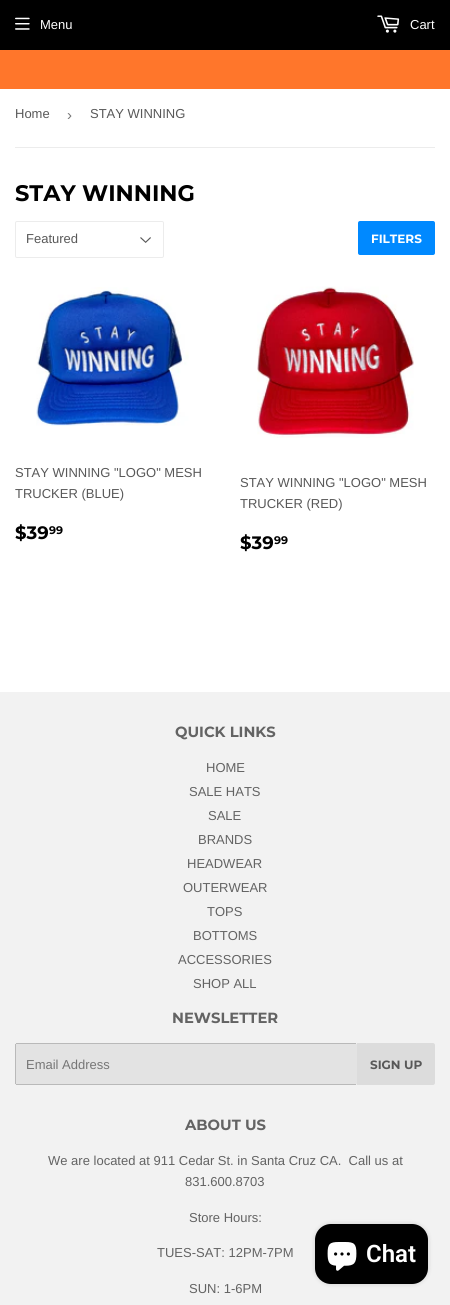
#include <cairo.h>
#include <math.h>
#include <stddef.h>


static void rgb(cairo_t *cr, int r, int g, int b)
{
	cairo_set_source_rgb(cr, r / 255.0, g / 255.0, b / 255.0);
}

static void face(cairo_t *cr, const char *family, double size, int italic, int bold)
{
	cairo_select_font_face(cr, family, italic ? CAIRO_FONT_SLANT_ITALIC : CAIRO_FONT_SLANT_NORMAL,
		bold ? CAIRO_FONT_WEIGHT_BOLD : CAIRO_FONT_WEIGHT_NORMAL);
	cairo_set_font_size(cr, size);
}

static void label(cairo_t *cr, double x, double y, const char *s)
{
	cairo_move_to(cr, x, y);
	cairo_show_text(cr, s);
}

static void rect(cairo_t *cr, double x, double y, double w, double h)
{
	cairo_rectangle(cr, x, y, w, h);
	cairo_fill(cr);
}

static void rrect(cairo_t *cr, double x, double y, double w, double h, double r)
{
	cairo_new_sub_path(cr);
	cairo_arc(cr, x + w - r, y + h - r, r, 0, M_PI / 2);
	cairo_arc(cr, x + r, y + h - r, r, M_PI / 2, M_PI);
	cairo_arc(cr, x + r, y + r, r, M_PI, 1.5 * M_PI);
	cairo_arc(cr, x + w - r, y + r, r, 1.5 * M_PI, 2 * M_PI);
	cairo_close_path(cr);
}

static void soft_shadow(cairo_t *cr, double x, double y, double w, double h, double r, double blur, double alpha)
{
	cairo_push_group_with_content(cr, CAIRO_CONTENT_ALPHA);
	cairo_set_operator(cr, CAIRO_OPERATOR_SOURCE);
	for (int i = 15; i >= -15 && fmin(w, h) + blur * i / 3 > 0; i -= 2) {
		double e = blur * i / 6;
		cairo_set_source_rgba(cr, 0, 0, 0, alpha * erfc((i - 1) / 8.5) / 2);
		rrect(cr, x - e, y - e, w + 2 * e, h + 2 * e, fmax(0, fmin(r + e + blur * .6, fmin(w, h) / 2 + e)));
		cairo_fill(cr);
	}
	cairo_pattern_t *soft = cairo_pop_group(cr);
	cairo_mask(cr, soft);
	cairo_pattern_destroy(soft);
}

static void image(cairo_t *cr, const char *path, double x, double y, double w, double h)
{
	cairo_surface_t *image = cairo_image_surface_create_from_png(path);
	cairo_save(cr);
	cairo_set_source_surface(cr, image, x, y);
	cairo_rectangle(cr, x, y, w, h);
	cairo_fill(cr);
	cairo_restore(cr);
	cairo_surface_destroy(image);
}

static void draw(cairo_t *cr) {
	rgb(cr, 255, 255, 255);
	cairo_paint(cr);
	rgb(cr, 0, 0, 0);
	rect(cr, 0, 0, 450, 50);
	image(cr, "image0.png", 15, 17, 15, 13);
	face(cr, "Liberation Sans", 13, 0, 0);
	rgb(cr, 255, 255, 255);
	label(cr, 40, 29, "Menu");
	image(cr, "image1.png", 377, 15, 23, 18);
	label(cr, 410, 29, "Cart");
	rgb(cr, 255, 118, 43);
	rect(cr, 0, 50, 450, 39);
	rgb(cr, 236, 236, 236);
	rect(cr, 15, 147, 420, 1);
	rgb(cr, 88, 88, 88);
	label(cr, 15, 118, "Home");
	face(cr, "Liberation Sans", 15, 0, 0);
	rgb(cr, 118, 118, 118);
	label(cr, 67, 120, "›");
	face(cr, "Liberation Sans", 13, 0, 0);
	rgb(cr, 88, 88, 88);
	label(cr, 90, 118, "STAY WINNING");
	face(cr, "Montserrat Thin", 22.5, 0, 0);
	rgb(cr, 0, 0, 0);
	label(cr, 15, 201, "STAY WINNING");
	image(cr, "image2.png", 140, 237, 11, 6);
	rrect(cr, 15.5, 221.5, 148, 36, 1.5);
	rgb(cr, 236, 236, 236);
	cairo_set_line_width(cr, 1);
	cairo_stroke(cr);
	face(cr, "Liberation Sans", 13, 0, 0);
	rgb(cr, 88, 88, 88);
	label(cr, 26, 243, "Featured");
	rgb(cr, 0, 137, 255);
	rrect(cr, 358, 221, 77, 34, 2);
	cairo_fill(cr);
	face(cr, "Montserrat Thin", 12, 0, 0);
	rgb(cr, 255, 255, 255);
	label(cr, 371, 243, "FILTERS");
	image(cr, "image3.png", 36, 287, 153, 139);
	face(cr, "Liberation Sans", 13, 0, 0);
	rgb(cr, 88, 88, 88);
	label(cr, 15, 477, "STAY WINNING \"LOGO\" MESH");
	label(cr, 15, 498, "TRUCKER (BLUE)");
	face(cr, "Montserrat Thin", 18, 0, 0);
	rgb(cr, 0, 0, 0);
	label(cr, 15, 539, "$39");
	face(cr, "Montserrat Thin", 11, 0, 0);
	label(cr, 49, 534, "99");
	image(cr, "image4.png", 257, 286, 157, 152);
	face(cr, "Liberation Sans", 13, 0, 0);
	rgb(cr, 88, 88, 88);
	label(cr, 240, 487, "STAY WINNING \"LOGO\" MESH");
	label(cr, 240, 508, "TRUCKER (RED)");
	face(cr, "Montserrat Thin", 18, 0, 0);
	rgb(cr, 0, 0, 0);
	label(cr, 240, 549, "$39");
	face(cr, "Montserrat Thin", 11, 0, 0);
	label(cr, 274, 544, "99");
	rgb(cr, 242, 242, 242);
	rect(cr, 0, 692, 450, 613);
	face(cr, "Montserrat Thin", 14.75, 0, 0);
	rgb(cr, 99, 99, 99);
	label(cr, 175, 737, "QUICK LINKS");
	face(cr, "Liberation Sans", 13, 0, 0);
	label(cr, 206, 772, "HOME");
	label(cr, 189, 796, "SALE HATS");
	label(cr, 208, 820, "SALE");
	label(cr, 198, 844, "BRANDS");
	label(cr, 187, 868, "HEADWEAR");
	label(cr, 183, 892, "OUTERWEAR");
	label(cr, 207, 916, "TOPS");
	label(cr, 193, 940, "BOTTOMS");
	label(cr, 178, 964, "ACCESSORIES");
	label(cr, 193, 988, "SHOP ALL");
	face(cr, "Montserrat Thin", 14.75, 0, 0);
	label(cr, 172, 1023, "NEWSLETTER");
	rgb(cr, 227, 227, 227);
	rrect(cr, 15, 1043, 342, 42, 2);
	cairo_fill(cr);
	rgb(cr, 185, 185, 185);
	rect(cr, 16, 1043, 340, 1);
	rect(cr, 16, 1084, 340, 1);
	rect(cr, 15, 1044, 1, 40);
	face(cr, "Liberation Sans", 13, 0, 0);
	rgb(cr, 118, 118, 118);
	label(cr, 26, 1069, "Email Address");
	rgb(cr, 220, 220, 220);
	cairo_new_path(cr);
	cairo_move_to(cr, 357, 1043);
	cairo_line_to(cr, 433, 1043);
	cairo_curve_to(cr, 434, 1043, 435, 1044, 435, 1045);
	cairo_line_to(cr, 435, 1083);
	cairo_curve_to(cr, 435, 1084, 434, 1085, 433, 1085);
	cairo_line_to(cr, 357, 1085);
	cairo_close_path(cr);
	cairo_fill(cr);
	face(cr, "Montserrat Thin", 12, 0, 0);
	rgb(cr, 88, 88, 88);
	label(cr, 370, 1069, "SIGN UP");
	face(cr, "Montserrat Thin", 14.75, 0, 0);
	rgb(cr, 99, 99, 99);
	label(cr, 185, 1130, "ABOUT US");
	face(cr, "Liberation Sans", 13, 0, 0);
	label(cr, 48, 1165, "We are located at 911 Cedar St. in Santa Cruz CA.  Call us at");
	label(cr, 185, 1186, "831.600.8703");
	label(cr, 189, 1222, "Store Hours:");
	label(cr, 157, 1257, "TUES-SAT: 12PM-7PM");
	label(cr, 189, 1293, "SUN: 1-6PM");
	rgb(cr, 0, 0, 0);
	soft_shadow(cr, 315, 1224, 113, 60, 16, 2.5, 0.15);
	rgb(cr, 0, 0, 0);
	rrect(cr, 315, 1224, 113, 60, 16);
	cairo_fill(cr);
	image(cr, "image5.png", 327, 1242, 30, 29);
	face(cr, "Roboto SemiBold", 24, 0, 0);
	rgb(cr, 255, 255, 255);
	label(cr, 366, 1262, "Chat");
}

int main(void) {
	cairo_surface_t *surface = cairo_image_surface_create(CAIRO_FORMAT_RGB24, 450, 1305);
	cairo_t *cr = cairo_create(surface);
	cairo_font_options_t *options = cairo_font_options_create();
	cairo_font_options_set_hint_metrics(options, CAIRO_HINT_METRICS_OFF);
	cairo_font_options_set_hint_style(options, CAIRO_HINT_STYLE_NONE);
	cairo_set_font_options(cr, options);
	cairo_set_miter_limit(cr, 4);
	draw(cr);
	cairo_surface_write_to_png(surface, "render.png");
	cairo_font_options_destroy(options);
	cairo_destroy(cr);
	cairo_surface_destroy(surface);
	return 0;
}
